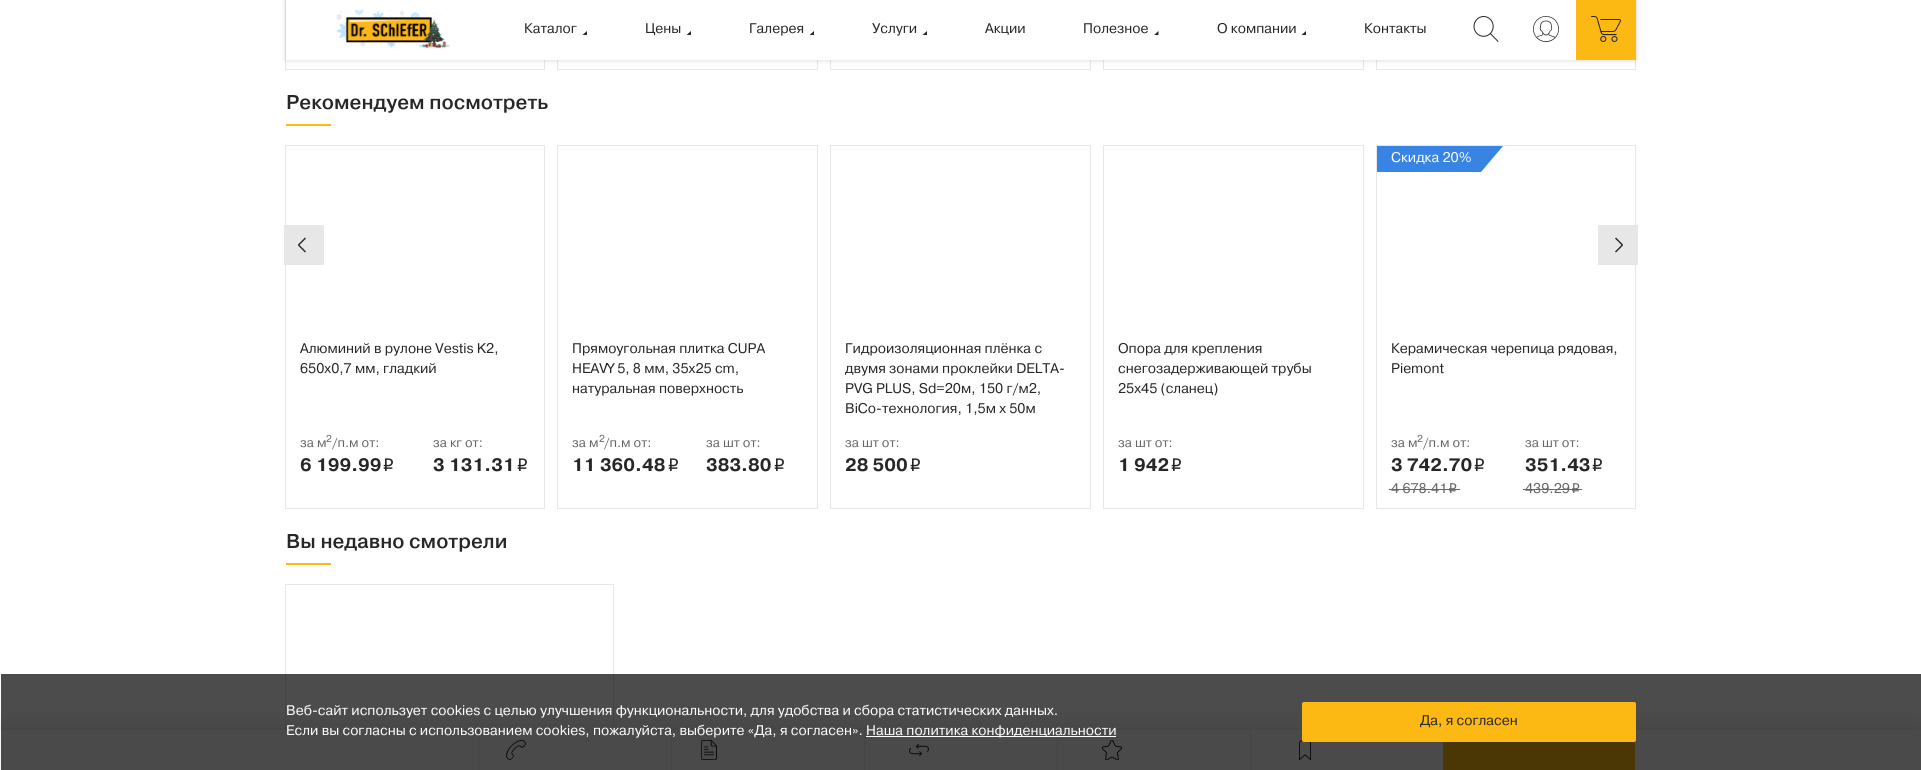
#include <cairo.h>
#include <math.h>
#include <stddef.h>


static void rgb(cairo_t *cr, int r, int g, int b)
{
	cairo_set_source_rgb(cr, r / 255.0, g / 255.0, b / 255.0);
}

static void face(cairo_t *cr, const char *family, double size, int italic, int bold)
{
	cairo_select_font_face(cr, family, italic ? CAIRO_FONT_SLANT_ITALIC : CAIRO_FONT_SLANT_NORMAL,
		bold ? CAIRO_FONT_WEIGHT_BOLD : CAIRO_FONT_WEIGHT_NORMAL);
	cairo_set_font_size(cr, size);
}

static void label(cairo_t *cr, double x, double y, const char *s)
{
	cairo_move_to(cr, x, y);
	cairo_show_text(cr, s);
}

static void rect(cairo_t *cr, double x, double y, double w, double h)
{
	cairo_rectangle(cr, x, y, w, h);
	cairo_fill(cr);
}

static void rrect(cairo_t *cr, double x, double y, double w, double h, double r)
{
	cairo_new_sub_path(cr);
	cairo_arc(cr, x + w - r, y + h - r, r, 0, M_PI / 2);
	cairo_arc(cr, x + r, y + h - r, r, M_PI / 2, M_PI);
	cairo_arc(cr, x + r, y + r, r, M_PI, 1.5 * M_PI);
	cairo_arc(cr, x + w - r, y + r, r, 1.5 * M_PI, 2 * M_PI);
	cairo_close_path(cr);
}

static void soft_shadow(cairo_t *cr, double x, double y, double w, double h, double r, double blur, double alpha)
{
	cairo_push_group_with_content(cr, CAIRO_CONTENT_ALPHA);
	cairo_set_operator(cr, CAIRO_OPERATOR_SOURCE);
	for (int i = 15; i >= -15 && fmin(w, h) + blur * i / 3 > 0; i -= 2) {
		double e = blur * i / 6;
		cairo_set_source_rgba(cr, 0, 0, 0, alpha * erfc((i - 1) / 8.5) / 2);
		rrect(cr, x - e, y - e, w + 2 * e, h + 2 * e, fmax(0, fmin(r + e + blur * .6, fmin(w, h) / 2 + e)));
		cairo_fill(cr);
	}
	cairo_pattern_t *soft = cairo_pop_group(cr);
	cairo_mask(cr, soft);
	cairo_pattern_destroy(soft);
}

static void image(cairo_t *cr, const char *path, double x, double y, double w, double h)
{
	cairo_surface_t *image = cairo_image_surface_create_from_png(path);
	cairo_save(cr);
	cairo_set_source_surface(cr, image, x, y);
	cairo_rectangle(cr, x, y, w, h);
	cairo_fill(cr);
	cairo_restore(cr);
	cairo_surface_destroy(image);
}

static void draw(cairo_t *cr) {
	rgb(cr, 255, 255, 255);
	cairo_paint(cr);
	cairo_rectangle(cr, 285.5, -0.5, 259, 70);
	rgb(cr, 231, 231, 231);
	cairo_set_line_width(cr, 1);
	cairo_stroke(cr);
	cairo_rectangle(cr, 557.5, -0.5, 260, 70);
	cairo_stroke(cr);
	cairo_rectangle(cr, 830.5, -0.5, 260, 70);
	cairo_stroke(cr);
	cairo_rectangle(cr, 1103.5, -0.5, 260, 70);
	cairo_stroke(cr);
	cairo_rectangle(cr, 1376.5, -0.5, 259, 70);
	cairo_stroke(cr);
	rgb(cr, 0, 0, 0);
	soft_shadow(cr, 286, 0, 1350, 60, 0, 3, 0.16);
	rgb(cr, 255, 255, 255);
	rect(cr, 286, 0, 1290, 60);
	image(cr, "image0.png", 333, 10, 117, 40);
	face(cr, "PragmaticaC", 14, 0, 0);
	rgb(cr, 39, 39, 39);
	label(cr, 524, 33, "Каталог");
	cairo_new_path(cr);
	cairo_move_to(cr, 582.5, 35);
	cairo_line_to(cr, 587, 31);
	cairo_line_to(cr, 587, 35);
	cairo_close_path(cr);
	cairo_fill(cr);
	label(cr, 645, 33, "Цены");
	cairo_new_path(cr);
	cairo_move_to(cr, 686.5, 35);
	cairo_line_to(cr, 691, 31);
	cairo_line_to(cr, 691, 35);
	cairo_close_path(cr);
	cairo_fill(cr);
	label(cr, 749, 33, "Галерея");
	cairo_new_path(cr);
	cairo_move_to(cr, 809.5, 35);
	cairo_line_to(cr, 814, 31);
	cairo_line_to(cr, 814, 35);
	cairo_close_path(cr);
	cairo_fill(cr);
	label(cr, 872, 33, "Услуги");
	cairo_new_path(cr);
	cairo_move_to(cr, 922.5, 35);
	cairo_line_to(cr, 927, 31);
	cairo_line_to(cr, 927, 35);
	cairo_close_path(cr);
	cairo_fill(cr);
	label(cr, 985, 33, "Акции");
	label(cr, 1083, 33, "Полезное");
	cairo_new_path(cr);
	cairo_move_to(cr, 1154, 35);
	cairo_line_to(cr, 1158.5, 31);
	cairo_line_to(cr, 1158.5, 35);
	cairo_close_path(cr);
	cairo_fill(cr);
	label(cr, 1217, 33, "О компании");
	cairo_new_path(cr);
	cairo_move_to(cr, 1301.5, 35);
	cairo_line_to(cr, 1306, 31);
	cairo_line_to(cr, 1306, 35);
	cairo_close_path(cr);
	cairo_fill(cr);
	label(cr, 1364, 33, "Контакты");
	image(cr, "image1.png", 1473, 16, 26, 26);
	image(cr, "image2.png", 1533, 16, 26, 26);
	rgb(cr, 253, 185, 19);
	rect(cr, 1576, 0, 60, 60);
	image(cr, "image3.png", 1591, 16, 30, 26);
	face(cr, "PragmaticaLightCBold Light", 20, 0, 0);
	rgb(cr, 39, 39, 39);
	label(cr, 286, 109, "Рекомендуем посмотреть");
	rgb(cr, 253, 185, 19);
	rect(cr, 286, 124, 45, 2);
	cairo_rectangle(cr, 285.5, 145.5, 259, 363);
	rgb(cr, 231, 231, 231);
	cairo_stroke(cr);
	face(cr, "PragmaticaC", 14, 0, 0);
	rgb(cr, 39, 39, 39);
	label(cr, 300, 353, "Алюминий в рулоне Vestis K2,");
	label(cr, 300, 373, "650x0,7 мм, гладкий");
	face(cr, "PragmaticaC", 13, 0, 0);
	rgb(cr, 102, 102, 102);
	label(cr, 300, 447, "за м");
	label(cr, 332, 447, "/п.м от:");
	face(cr, "PragmaticaC", 10, 0, 0);
	label(cr, 326, 442, "2");
	face(cr, "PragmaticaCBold", 18, 0, 1);
	rgb(cr, 39, 39, 39);
	label(cr, 300, 471, "6 199.99");
	image(cr, "image4.png", 383, 458, 10, 13);
	face(cr, "PragmaticaC", 13, 0, 0);
	rgb(cr, 102, 102, 102);
	label(cr, 433, 447, "за кг от:");
	face(cr, "PragmaticaCBold", 18, 0, 1);
	rgb(cr, 39, 39, 39);
	label(cr, 433, 471, "3 131.31");
	image(cr, "image4.png", 517, 458, 10, 13);
	cairo_rectangle(cr, 557.5, 145.5, 260, 363);
	rgb(cr, 231, 231, 231);
	cairo_stroke(cr);
	face(cr, "PragmaticaC", 14, 0, 0);
	rgb(cr, 39, 39, 39);
	label(cr, 572, 353, "Прямоугольная плитка CUPA");
	label(cr, 572, 373, "HEAVY 5, 8 мм, 35x25 cm,");
	label(cr, 572, 393, "натуральная поверхность");
	face(cr, "PragmaticaC", 13, 0, 0);
	rgb(cr, 102, 102, 102);
	label(cr, 572, 447, "за м");
	face(cr, "PragmaticaC", 10, 0, 0);
	label(cr, 599, 442, "2");
	face(cr, "PragmaticaC", 13, 0, 0);
	label(cr, 604, 447, "/п.м от:");
	face(cr, "PragmaticaCBold", 18, 0, 1);
	rgb(cr, 39, 39, 39);
	label(cr, 572, 471, "11 360.48");
	image(cr, "image4.png", 668, 458, 10, 13);
	face(cr, "PragmaticaC", 13, 0, 0);
	rgb(cr, 102, 102, 102);
	label(cr, 706, 447, "за шт от:");
	face(cr, "PragmaticaCBold", 18, 0, 1);
	rgb(cr, 39, 39, 39);
	label(cr, 706, 471, "383.80");
	image(cr, "image4.png", 774, 458, 10, 13);
	cairo_rectangle(cr, 830.5, 145.5, 260, 363);
	rgb(cr, 231, 231, 231);
	cairo_stroke(cr);
	face(cr, "PragmaticaC", 14, 0, 0);
	rgb(cr, 39, 39, 39);
	label(cr, 845, 353, "Гидроизоляционная плёнка с");
	label(cr, 845, 373, "двумя зонами проклейки DELTA-");
	label(cr, 845, 393, "PVG PLUS, Sd=20м, 150 г/м2,");
	label(cr, 845, 413, "BiCo-технология, 1,5м х 50м");
	face(cr, "PragmaticaC", 13, 0, 0);
	rgb(cr, 102, 102, 102);
	label(cr, 845, 447, "за шт от:");
	face(cr, "PragmaticaCBold", 18, 0, 1);
	rgb(cr, 39, 39, 39);
	label(cr, 845, 471, "28 500");
	image(cr, "image4.png", 910, 458, 10, 13);
	cairo_rectangle(cr, 1103.5, 145.5, 260, 363);
	rgb(cr, 231, 231, 231);
	cairo_stroke(cr);
	face(cr, "PragmaticaC", 14, 0, 0);
	rgb(cr, 39, 39, 39);
	label(cr, 1118, 353, "Опора для крепления");
	label(cr, 1118, 373, "снегозадерживающей трубы");
	label(cr, 1118, 393, "25х45 (сланец)");
	face(cr, "PragmaticaC", 13, 0, 0);
	rgb(cr, 102, 102, 102);
	label(cr, 1118, 447, "за шт от:");
	face(cr, "PragmaticaCBold", 18, 0, 1);
	rgb(cr, 39, 39, 39);
	label(cr, 1118, 471, "1 942");
	image(cr, "image4.png", 1171, 458, 10, 13);
	cairo_rectangle(cr, 1376.5, 145.5, 259, 363);
	rgb(cr, 231, 231, 231);
	cairo_stroke(cr);
	cairo_save(cr);
	cairo_rectangle(cr, 1377, 146, 258, 180);
	cairo_clip(cr);
	rgb(cr, 56, 132, 229);
	cairo_new_path(cr);
	cairo_move_to(cr, 1376, 146);
	cairo_line_to(cr, 1503, 146);
	cairo_line_to(cr, 1481, 172);
	cairo_line_to(cr, 1354, 172);
	cairo_close_path(cr);
	cairo_fill(cr);
	cairo_restore(cr);
	face(cr, "PragmaticaC", 14, 0, 0);
	rgb(cr, 255, 255, 255);
	label(cr, 1391, 162, "Скидка 20%");
	rgb(cr, 39, 39, 39);
	label(cr, 1391, 353, "Керамическая черепица рядовая,");
	label(cr, 1391, 373, "Piemont");
	face(cr, "PragmaticaC", 13, 0, 0);
	rgb(cr, 102, 102, 102);
	label(cr, 1391, 447, "за м");
	label(cr, 1423, 447, "/п.м от:");
	face(cr, "PragmaticaC", 10, 0, 0);
	label(cr, 1417, 442, "2");
	face(cr, "PragmaticaCBold", 18, 0, 1);
	rgb(cr, 39, 39, 39);
	label(cr, 1391, 471, "3 742.70");
	image(cr, "image4.png", 1474, 458, 10, 13);
	face(cr, "PragmaticaC", 14, 0, 0);
	rgb(cr, 102, 102, 102);
	label(cr, 1391, 493, "4 678.41");
	image(cr, "image5.png", 1449, 483, 8, 10);
	rect(cr, 1389, 489, 71, 1);
	face(cr, "PragmaticaC", 13, 0, 0);
	label(cr, 1525, 447, "за шт от:");
	face(cr, "PragmaticaCBold", 18, 0, 1);
	rgb(cr, 39, 39, 39);
	label(cr, 1525, 471, "351.43");
	image(cr, "image4.png", 1592, 458, 10, 13);
	face(cr, "PragmaticaC", 14, 0, 0);
	rgb(cr, 102, 102, 102);
	label(cr, 1525, 493, "439.29");
	image(cr, "image5.png", 1572, 483, 8, 10);
	rect(cr, 1523, 489, 59, 1);
	rgb(cr, 231, 231, 231);
	rect(cr, 284, 225, 40, 40);
	rgb(cr, 39, 39, 39);
	cairo_new_path(cr);
	cairo_move_to(cr, 298, 244.5);
	cairo_line_to(cr, 305, 237.5);
	cairo_line_to(cr, 306, 238.5);
	cairo_line_to(cr, 299, 245.5);
	cairo_close_path(cr);
	cairo_fill(cr);
	cairo_new_path(cr);
	cairo_move_to(cr, 299, 244.5);
	cairo_line_to(cr, 306, 251.5);
	cairo_line_to(cr, 305, 252.5);
	cairo_line_to(cr, 298, 245.5);
	cairo_close_path(cr);
	cairo_fill(cr);
	rgb(cr, 231, 231, 231);
	rect(cr, 1598, 225, 40, 40);
	rgb(cr, 39, 39, 39);
	cairo_new_path(cr);
	cairo_move_to(cr, 1615, 251.5);
	cairo_line_to(cr, 1622, 244.5);
	cairo_line_to(cr, 1623, 245.5);
	cairo_line_to(cr, 1616, 252.5);
	cairo_close_path(cr);
	cairo_fill(cr);
	cairo_new_path(cr);
	cairo_move_to(cr, 1616, 237.5);
	cairo_line_to(cr, 1623, 244.5);
	cairo_line_to(cr, 1622, 245.5);
	cairo_line_to(cr, 1615, 238.5);
	cairo_close_path(cr);
	cairo_fill(cr);
	face(cr, "PragmaticaLightCBold Light", 20, 0, 0);
	label(cr, 286, 548, "Вы недавно смотрели");
	rgb(cr, 253, 185, 19);
	rect(cr, 286, 563, 45, 2);
	cairo_rectangle(cr, 285.5, 584.5, 328, 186);
	rgb(cr, 231, 231, 231);
	cairo_stroke(cr);
	rgb(cr, 0, 0, 0);
	soft_shadow(cr, 0, 730, 1921, 40, 0, 12, 0.16);
	rgb(cr, 248, 248, 248);
	rect(cr, 0, 730, 1921, 40);
	rgb(cr, 231, 231, 231);
	rect(cr, 478, 730, 1, 40);
	image(cr, "image6.png", 506, 740, 20, 20);
	rect(cr, 671, 730, 1, 40);
	image(cr, "image7.png", 701, 740, 16, 20);
	rect(cr, 864, 730, 1, 40);
	image(cr, "image8.png", 909, 743, 20, 14);
	rect(cr, 1057, 730, 1, 40);
	image(cr, "image9.png", 1102, 740, 20, 20);
	rect(cr, 1250, 730, 1, 40);
	image(cr, "image10.png", 1299, 740, 12, 20);
	rgb(cr, 253, 185, 19);
	rect(cr, 1443, 741, 192, 29);
	cairo_set_source_rgba(cr, 0, 0, 0, 0.7);
	rect(cr, 1, 674, 1920, 96);
	face(cr, "PragmaticaC", 14, 0, 0);
	rgb(cr, 255, 255, 255);
	label(cr, 286, 715, "Веб-сайт использует cookies с целью улучшения функциональности, для удобства и сбора статистических данных.");
	label(cr, 286, 735, "Если вы согласны с использованием cookies, пожалуйста, выберите «Да, я согласен».");
	rect(cr, 866, 736, 250, 1);
	label(cr, 866, 735, "Наша политика конфиденциальности");
	rgb(cr, 253, 185, 19);
	rrect(cr, 1302.5, 702.5, 333, 39, 1.5);
	cairo_fill_preserve(cr);
	cairo_stroke(cr);
	rgb(cr, 39, 39, 39);
	label(cr, 1420, 725, "Да, я согласен");
}

int main(void) {
	cairo_surface_t *surface = cairo_image_surface_create(CAIRO_FORMAT_RGB24, 1921, 770);
	cairo_t *cr = cairo_create(surface);
	cairo_font_options_t *options = cairo_font_options_create();
	cairo_font_options_set_hint_metrics(options, CAIRO_HINT_METRICS_OFF);
	cairo_font_options_set_hint_style(options, CAIRO_HINT_STYLE_NONE);
	cairo_set_font_options(cr, options);
	cairo_set_miter_limit(cr, 4);
	draw(cr);
	cairo_surface_write_to_png(surface, "render.png");
	cairo_font_options_destroy(options);
	cairo_destroy(cr);
	cairo_surface_destroy(surface);
	return 0;
}
